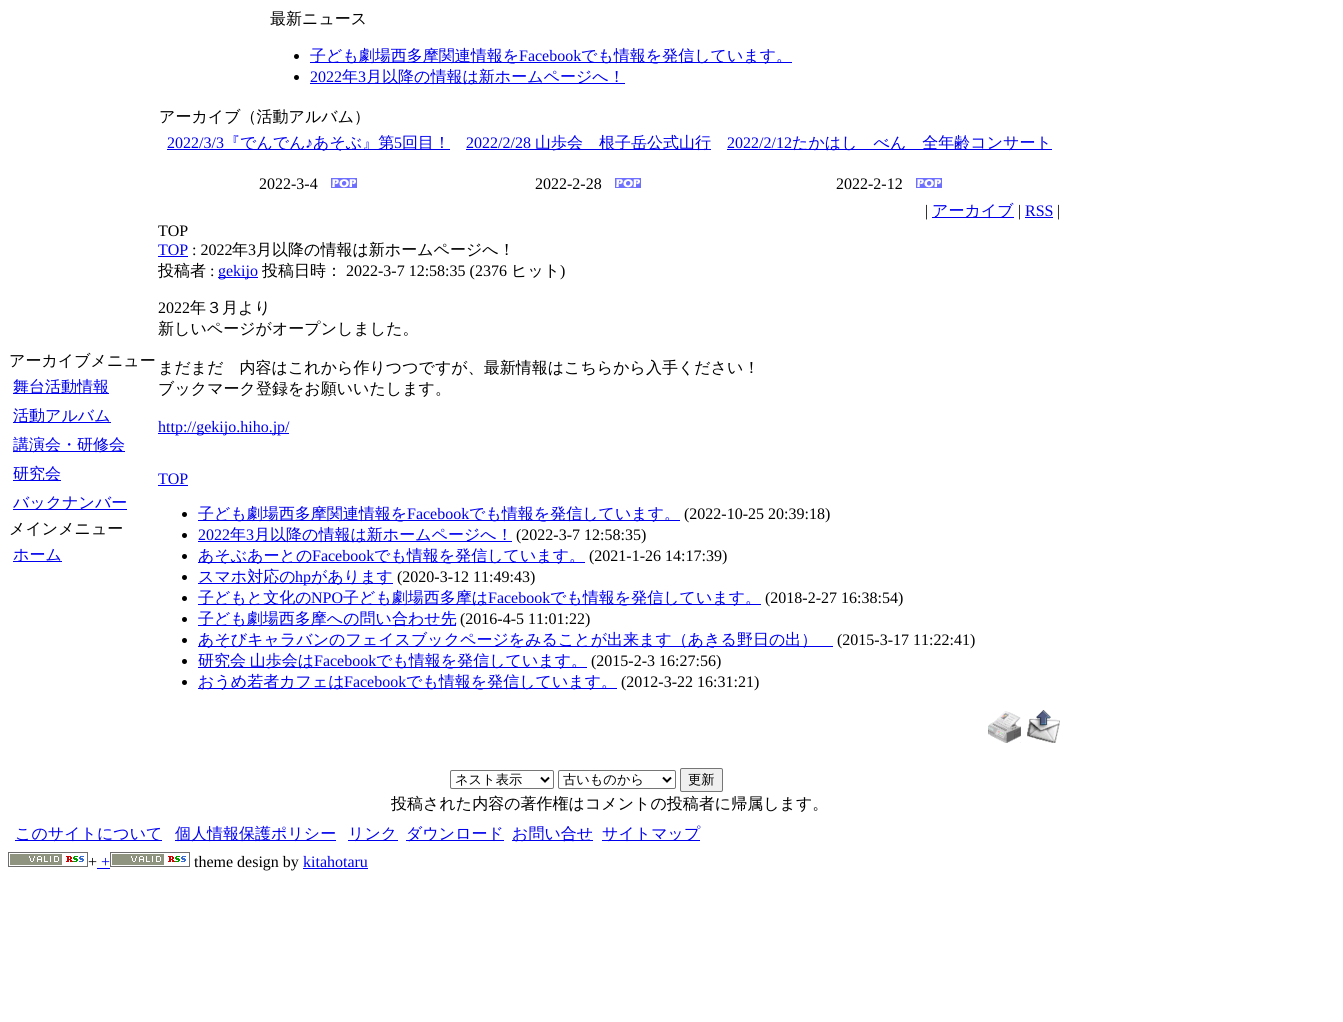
#include <cairo.h>
#include <math.h>
#include <stddef.h>


static void rgb(cairo_t *cr, int r, int g, int b)
{
	cairo_set_source_rgb(cr, r / 255.0, g / 255.0, b / 255.0);
}

static void face(cairo_t *cr, const char *family, double size, int italic, int bold)
{
	cairo_select_font_face(cr, family, italic ? CAIRO_FONT_SLANT_ITALIC : CAIRO_FONT_SLANT_NORMAL,
		bold ? CAIRO_FONT_WEIGHT_BOLD : CAIRO_FONT_WEIGHT_NORMAL);
	cairo_set_font_size(cr, size);
}

static void label(cairo_t *cr, double x, double y, const char *s)
{
	cairo_move_to(cr, x, y);
	cairo_show_text(cr, s);
}

static void tracked(cairo_t *cr, double x, double y, const char *s, double letter, double word)
{
	cairo_move_to(cr, x, y);
	while (*s) {
		char ch[5] = {0};
		int n = 0;
		do ch[n++] = *s++; while ((*s & 0xC0) == 0x80);
		cairo_show_text(cr, ch);
		cairo_rel_move_to(cr, letter + word * (*ch == ' '), 0);
	}
}

static void rect(cairo_t *cr, double x, double y, double w, double h)
{
	cairo_rectangle(cr, x, y, w, h);
	cairo_fill(cr);
}

static void rrect(cairo_t *cr, double x, double y, double w, double h, double r)
{
	cairo_new_sub_path(cr);
	cairo_arc(cr, x + w - r, y + h - r, r, 0, M_PI / 2);
	cairo_arc(cr, x + r, y + h - r, r, M_PI / 2, M_PI);
	cairo_arc(cr, x + r, y + r, r, M_PI, 1.5 * M_PI);
	cairo_arc(cr, x + w - r, y + r, r, 1.5 * M_PI, 2 * M_PI);
	cairo_close_path(cr);
}

static void image(cairo_t *cr, const char *path, double x, double y, double w, double h)
{
	cairo_surface_t *image = cairo_image_surface_create_from_png(path);
	cairo_save(cr);
	cairo_set_source_surface(cr, image, x, y);
	cairo_rectangle(cr, x, y, w, h);
	cairo_fill(cr);
	cairo_restore(cr);
	cairo_surface_destroy(image);
}

static void draw(cairo_t *cr) {
	rgb(cr, 255, 255, 255);
	cairo_paint(cr);
	face(cr, "WenQuanYi Zen Hei Medium", 16, 0, 0);
	rgb(cr, 0, 0, 0);
	label(cr, 270, 24, "最新ニュース");
	cairo_new_path(cr);
	cairo_arc(cr, 296.5, 56.5, 2.5, 0, 2 * M_PI);
	cairo_fill(cr);
	rgb(cr, 0, 0, 238);
	rect(cr, 310, 62, 482, 1);
	label(cr, 310, 61, "子ども劇場西多摩関連情報を");
	face(cr, "Liberation Serif", 16, 0, 0);
	label(cr, 519, 61, "Facebook");
	face(cr, "WenQuanYi Zen Hei Medium", 16, 0, 0);
	label(cr, 581, 61, "でも情報を発信しています。");
	rgb(cr, 0, 0, 0);
	cairo_new_path(cr);
	cairo_arc(cr, 296.5, 77.5, 2.5, 0, 2 * M_PI);
	cairo_fill(cr);
	face(cr, "Liberation Serif", 16, 0, 0);
	rgb(cr, 0, 0, 238);
	label(cr, 310, 82, "2022");
	rect(cr, 310, 83, 315, 1);
	face(cr, "WenQuanYi Zen Hei Medium", 16, 0, 0);
	label(cr, 342, 82, "年");
	face(cr, "Liberation Serif", 16, 0, 0);
	label(cr, 358, 82, "3");
	face(cr, "WenQuanYi Zen Hei Medium", 16, 0, 0);
	label(cr, 366, 82, "月以降の情報は新ホームページへ！");
	rgb(cr, 0, 0, 0);
	label(cr, 9, 366, "アーカイブメニュー");
	rgb(cr, 0, 0, 238);
	rect(cr, 13, 393, 96, 1);
	label(cr, 13, 392, "舞台活動情報");
	rect(cr, 13, 422, 98, 1);
	label(cr, 13, 421, "活動アルバム");
	rect(cr, 13, 451, 112, 1);
	label(cr, 13, 450, "講演会・研修会");
	rect(cr, 13, 480, 48, 1);
	label(cr, 13, 479, "研究会");
	rect(cr, 13, 509, 114, 1);
	label(cr, 13, 508, "バックナンバー");
	rgb(cr, 0, 0, 0);
	label(cr, 9, 534, "メインメニュー");
	rgb(cr, 0, 0, 238);
	rect(cr, 13, 561, 49, 1);
	label(cr, 13, 560, "ホーム");
	rgb(cr, 0, 0, 0);
	label(cr, 159, 122, "アーカイブ（活動アルバム）");
	face(cr, "Liberation Serif", 16, 0, 0);
	rgb(cr, 0, 0, 238);
	label(cr, 167, 148, "2022/3/3");
	rect(cr, 167, 149, 283, 1);
	face(cr, "WenQuanYi Zen Hei Medium", 16, 0, 0);
	label(cr, 224, 148, "『でんでん");
	face(cr, "Liberation Serif", 16, 0, 0);
	label(cr, 305, 148, "♪");
	face(cr, "WenQuanYi Zen Hei Medium", 16, 0, 0);
	label(cr, 313, 148, "あそぶ』第");
	face(cr, "Liberation Serif", 16, 0, 0);
	label(cr, 394, 148, "5");
	face(cr, "WenQuanYi Zen Hei Medium", 16, 0, 0);
	label(cr, 402, 148, "回目！");
	face(cr, "Liberation Serif", 16, 0, 0);
	rgb(cr, 0, 0, 0);
	label(cr, 259, 189, "2022-3-4");
	image(cr, "image0.png", 331, 178, 26, 10);
	rgb(cr, 0, 0, 238);
	label(cr, 466, 148, "2022/2/28");
	rect(cr, 466, 149, 245, 1);
	face(cr, "WenQuanYi Zen Hei Medium", 16, 0, 0);
	label(cr, 535, 148, "山歩会　根子岳公式山行");
	face(cr, "Liberation Serif", 16, 0, 0);
	rgb(cr, 0, 0, 0);
	label(cr, 535, 189, "2022-2-28");
	image(cr, "image0.png", 615, 178, 26, 10);
	rgb(cr, 0, 0, 238);
	label(cr, 727, 148, "2022/2/12");
	rect(cr, 727, 149, 325, 1);
	face(cr, "WenQuanYi Zen Hei Medium", 16, 0, 0);
	label(cr, 792, 148, "たかはし　べん　全年齢コンサート");
	face(cr, "Liberation Serif", 16, 0, 0);
	rgb(cr, 0, 0, 0);
	label(cr, 836, 189, "2022-2-12");
	image(cr, "image0.png", 916, 178, 26, 10);
	label(cr, 925, 216, "|");
	rgb(cr, 0, 0, 238);
	rect(cr, 932, 217, 82, 1);
	face(cr, "WenQuanYi Zen Hei Medium", 16, 0, 0);
	label(cr, 932, 216, "アーカイブ");
	face(cr, "Liberation Serif", 16, 0, 0);
	rgb(cr, 0, 0, 0);
	label(cr, 1018, 216, "|");
	rgb(cr, 0, 0, 238);
	label(cr, 1025, 216, "RSS");
	rect(cr, 1025, 217, 28, 1);
	rgb(cr, 0, 0, 0);
	label(cr, 1057, 216, "|");
	label(cr, 158, 236, "TOP");
	rgb(cr, 0, 0, 238);
	label(cr, 158, 255, "TOP");
	rect(cr, 158, 256, 30, 1);
	rgb(cr, 0, 0, 0);
	label(cr, 192, 255, ": 2022");
	face(cr, "WenQuanYi Zen Hei Medium", 16, 0, 0);
	label(cr, 232, 255, "年");
	face(cr, "Liberation Serif", 16, 0, 0);
	label(cr, 248, 255, "3");
	face(cr, "WenQuanYi Zen Hei Medium", 16, 0, 0);
	label(cr, 256, 255, "月以降の情報は新ホームページへ！");
	label(cr, 158, 276, "投稿者");
	face(cr, "Liberation Serif", 16, 0, 0);
	label(cr, 210, 276, ":");
	rgb(cr, 0, 0, 238);
	rect(cr, 218, 277, 40, 1);
	label(cr, 218, 276, "gekijo");
	face(cr, "WenQuanYi Zen Hei Medium", 16, 0, 0);
	rgb(cr, 0, 0, 0);
	label(cr, 262, 276, "投稿日時：");
	face(cr, "Liberation Serif", 16, 0, 0);
	label(cr, 346, 276, "2022-3-7 12:58:35 (2376");
	face(cr, "WenQuanYi Zen Hei Medium", 16, 0, 0);
	label(cr, 511, 276, "ヒット");
	face(cr, "Liberation Serif", 16, 0, 0);
	label(cr, 560, 276, ")");
	label(cr, 158, 313, "2022");
	face(cr, "WenQuanYi Zen Hei Medium", 16, 0, 0);
	label(cr, 190, 313, "年３月より");
	label(cr, 158, 334, "新しいページがオープンしました。");
	label(cr, 158, 373, "まだまだ　内容はこれから作りつつですが、最新情報はこちらから入手ください！");
	label(cr, 158, 394, "ブックマーク登録をお願いいたします。");
	rgb(cr, 0, 0, 238);
	rect(cr, 158, 433, 131, 1);
	face(cr, "Liberation Serif", 16, 0, 0);
	label(cr, 158, 432, "http://gekijo.hiho.jp/");
	label(cr, 158, 484, "TOP");
	rect(cr, 158, 485, 30, 1);
	rgb(cr, 0, 0, 0);
	cairo_new_path(cr);
	cairo_arc(cr, 184.5, 514.5, 2.5, 0, 2 * M_PI);
	cairo_fill(cr);
	rgb(cr, 0, 0, 238);
	rect(cr, 198, 520, 482, 1);
	face(cr, "WenQuanYi Zen Hei Medium", 16, 0, 0);
	label(cr, 198, 519, "子ども劇場西多摩関連情報を");
	face(cr, "Liberation Serif", 16, 0, 0);
	label(cr, 407, 519, "Facebook");
	face(cr, "WenQuanYi Zen Hei Medium", 16, 0, 0);
	label(cr, 469, 519, "でも情報を発信しています。");
	face(cr, "Liberation Serif", 16, 0, 0);
	rgb(cr, 0, 0, 0);
	label(cr, 684, 519, "(2022-10-25 20:39:18)");
	cairo_new_path(cr);
	cairo_arc(cr, 184.5, 535.5, 2.5, 0, 2 * M_PI);
	cairo_fill(cr);
	rgb(cr, 0, 0, 238);
	label(cr, 198, 540, "2022");
	rect(cr, 198, 541, 314, 1);
	face(cr, "WenQuanYi Zen Hei Medium", 16, 0, 0);
	label(cr, 230, 540, "年");
	face(cr, "Liberation Serif", 16, 0, 0);
	label(cr, 246, 540, "3");
	face(cr, "WenQuanYi Zen Hei Medium", 16, 0, 0);
	label(cr, 254, 540, "月以降の情報は新ホームページへ！");
	face(cr, "Liberation Serif", 16, 0, 0);
	rgb(cr, 0, 0, 0);
	label(cr, 516, 540, "(2022-3-7 12:58:35)");
	cairo_new_path(cr);
	cairo_arc(cr, 184.5, 556.5, 2.5, 0, 2 * M_PI);
	cairo_fill(cr);
	rgb(cr, 0, 0, 238);
	rect(cr, 198, 562, 387, 1);
	face(cr, "WenQuanYi Zen Hei Medium", 16, 0, 0);
	label(cr, 198, 561, "あそぶあーとの");
	face(cr, "Liberation Serif", 16, 0, 0);
	label(cr, 312, 561, "Facebook");
	face(cr, "WenQuanYi Zen Hei Medium", 16, 0, 0);
	label(cr, 374, 561, "でも情報を発信しています。");
	face(cr, "Liberation Serif", 16, 0, 0);
	rgb(cr, 0, 0, 0);
	label(cr, 589, 561, "(2021-1-26 14:17:39)");
	cairo_new_path(cr);
	cairo_arc(cr, 184.5, 577.5, 2.5, 0, 2 * M_PI);
	cairo_fill(cr);
	rgb(cr, 0, 0, 238);
	rect(cr, 198, 583, 195, 1);
	face(cr, "WenQuanYi Zen Hei Medium", 16, 0, 0);
	label(cr, 198, 582, "スマホ対応の");
	face(cr, "Liberation Serif", 16, 0, 0);
	label(cr, 295, 582, "hp");
	face(cr, "WenQuanYi Zen Hei Medium", 16, 0, 0);
	label(cr, 311, 582, "があります");
	face(cr, "Liberation Serif", 16, 0, 0);
	rgb(cr, 0, 0, 0);
	label(cr, 397, 582, "(2020-3-12 11:49:43)");
	cairo_new_path(cr);
	cairo_arc(cr, 184.5, 598.5, 2.5, 0, 2 * M_PI);
	cairo_fill(cr);
	rgb(cr, 0, 0, 238);
	rect(cr, 198, 604, 563, 1);
	face(cr, "WenQuanYi Zen Hei Medium", 16, 0, 0);
	label(cr, 198, 603, "子どもと文化の");
	face(cr, "Liberation Serif", 16, 0, 0);
	label(cr, 311, 603, "NPO");
	face(cr, "WenQuanYi Zen Hei Medium", 16, 0, 0);
	label(cr, 343, 603, "子ども劇場西多摩は");
	face(cr, "Liberation Serif", 16, 0, 0);
	label(cr, 488, 603, "Facebook");
	face(cr, "WenQuanYi Zen Hei Medium", 16, 0, 0);
	label(cr, 550, 603, "でも情報を発信しています。");
	face(cr, "Liberation Serif", 16, 0, 0);
	rgb(cr, 0, 0, 0);
	label(cr, 765, 603, "(2018-2-27 16:38:54)");
	cairo_new_path(cr);
	cairo_arc(cr, 184.5, 619.5, 2.5, 0, 2 * M_PI);
	cairo_fill(cr);
	rgb(cr, 0, 0, 238);
	rect(cr, 198, 625, 258, 1);
	face(cr, "WenQuanYi Zen Hei Medium", 16, 0, 0);
	label(cr, 198, 624, "子ども劇場西多摩への問い合わせ先");
	face(cr, "Liberation Serif", 16, 0, 0);
	rgb(cr, 0, 0, 0);
	label(cr, 460, 624, "(2016-4-5 11:01:22)");
	cairo_new_path(cr);
	cairo_arc(cr, 184.5, 640.5, 2.5, 0, 2 * M_PI);
	cairo_fill(cr);
	rgb(cr, 0, 0, 238);
	rect(cr, 198, 646, 635, 1);
	face(cr, "WenQuanYi Zen Hei Medium", 16, 0, 0);
	label(cr, 198, 645, "あそびキャラバンのフェイスブックページをみることが出来ます（あきる野日の出）");
	face(cr, "Liberation Serif", 16, 0, 0);
	rgb(cr, 0, 0, 0);
	label(cr, 837, 645, "(2015-3-17 11:22:41)");
	cairo_new_path(cr);
	cairo_arc(cr, 184.5, 661.5, 2.5, 0, 2 * M_PI);
	cairo_fill(cr);
	rgb(cr, 0, 0, 238);
	rect(cr, 198, 667, 389, 1);
	face(cr, "WenQuanYi Zen Hei Medium", 16, 0, 0);
	tracked(cr, 198, 666, "研究会 山歩会は", 0, -1);
	face(cr, "Liberation Serif", 16, 0, 0);
	label(cr, 314, 666, "Facebook");
	face(cr, "WenQuanYi Zen Hei Medium", 16, 0, 0);
	label(cr, 376, 666, "でも情報を発信しています。");
	face(cr, "Liberation Serif", 16, 0, 0);
	rgb(cr, 0, 0, 0);
	label(cr, 591, 666, "(2015-2-3 16:27:56)");
	cairo_new_path(cr);
	cairo_arc(cr, 184.5, 682.5, 2.5, 0, 2 * M_PI);
	cairo_fill(cr);
	rgb(cr, 0, 0, 238);
	rect(cr, 198, 688, 419, 1);
	face(cr, "WenQuanYi Zen Hei Medium", 16, 0, 0);
	label(cr, 198, 687, "おうめ若者カフェは");
	face(cr, "Liberation Serif", 16, 0, 0);
	label(cr, 344, 687, "Facebook");
	face(cr, "WenQuanYi Zen Hei Medium", 16, 0, 0);
	label(cr, 406, 687, "でも情報を発信しています。");
	face(cr, "Liberation Serif", 16, 0, 0);
	rgb(cr, 0, 0, 0);
	label(cr, 621, 687, "(2012-3-22 16:31:21)");
	image(cr, "image1.png", 988, 711, 33, 32);
	image(cr, "image2.png", 1027, 710, 33, 33);
	rrect(cr, 450.5, 770.5, 103, 18, 1.5);
	rgb(cr, 118, 118, 118);
	cairo_set_line_width(cr, 1);
	cairo_stroke(cr);
	cairo_new_path(cr);
	cairo_move_to(cr, 541, 777.5);
	cairo_line_to(cr, 545, 781.5);
	cairo_line_to(cr, 549, 777.5);
	rgb(cr, 0, 0, 0);
	cairo_set_line_width(cr, 2);
	cairo_stroke(cr);
	face(cr, "WenQuanYi Zen Hei Medium", 13.25, 0, 0);
	label(cr, 455, 784, "ネスト表示");
	rrect(cr, 558.5, 770.5, 117, 18, 1.5);
	rgb(cr, 118, 118, 118);
	cairo_set_line_width(cr, 1);
	cairo_stroke(cr);
	cairo_new_path(cr);
	cairo_move_to(cr, 663, 777.5);
	cairo_line_to(cr, 667, 781.5);
	cairo_line_to(cr, 671, 777.5);
	rgb(cr, 0, 0, 0);
	cairo_set_line_width(cr, 2);
	cairo_stroke(cr);
	label(cr, 563, 784, "古いものから");
	rgb(cr, 239, 239, 239);
	rrect(cr, 680.5, 768.5, 42, 23, 1.5);
	cairo_fill_preserve(cr);
	rgb(cr, 118, 118, 118);
	cairo_set_line_width(cr, 1);
	cairo_stroke(cr);
	rgb(cr, 0, 0, 0);
	label(cr, 688, 784, "更新");
	face(cr, "WenQuanYi Zen Hei Medium", 16, 0, 0);
	label(cr, 391, 809, "投稿された内容の著作権はコメントの投稿者に帰属します。");
	rgb(cr, 0, 0, 238);
	rect(cr, 15, 840, 147, 1);
	label(cr, 15, 839, "このサイトについて");
	rect(cr, 175, 840, 161, 1);
	label(cr, 175, 839, "個人情報保護ポリシー");
	rect(cr, 348, 840, 50, 1);
	label(cr, 348, 839, "リンク");
	rect(cr, 406, 840, 98, 1);
	label(cr, 406, 839, "ダウンロード");
	rect(cr, 512, 840, 81, 1);
	label(cr, 512, 839, "お問い合せ");
	rect(cr, 602, 840, 98, 1);
	label(cr, 602, 839, "サイトマップ");
	image(cr, "image3.png", 8, 852, 80, 15);
	face(cr, "Liberation Serif", 16, 0, 0);
	rgb(cr, 0, 0, 0);
	label(cr, 88, 867, "+");
	rgb(cr, 0, 0, 238);
	label(cr, 101, 867, "+");
	rect(cr, 97, 868, 13, 1);
	image(cr, "image3.png", 110, 852, 80, 15);
	rgb(cr, 0, 0, 0);
	label(cr, 194, 867, "theme design by");
	rgb(cr, 0, 0, 238);
	label(cr, 303, 867, "kitahotaru");
	rect(cr, 303, 868, 65, 1);
}

int main(void) {
	cairo_surface_t *surface = cairo_image_surface_create(CAIRO_FORMAT_RGB24, 1343, 1022);
	cairo_t *cr = cairo_create(surface);
	cairo_font_options_t *options = cairo_font_options_create();
	cairo_font_options_set_hint_metrics(options, CAIRO_HINT_METRICS_OFF);
	cairo_font_options_set_hint_style(options, CAIRO_HINT_STYLE_NONE);
	cairo_set_font_options(cr, options);
	cairo_set_miter_limit(cr, 4);
	draw(cr);
	cairo_surface_write_to_png(surface, "render.png");
	cairo_font_options_destroy(options);
	cairo_destroy(cr);
	cairo_surface_destroy(surface);
	return 0;
}
